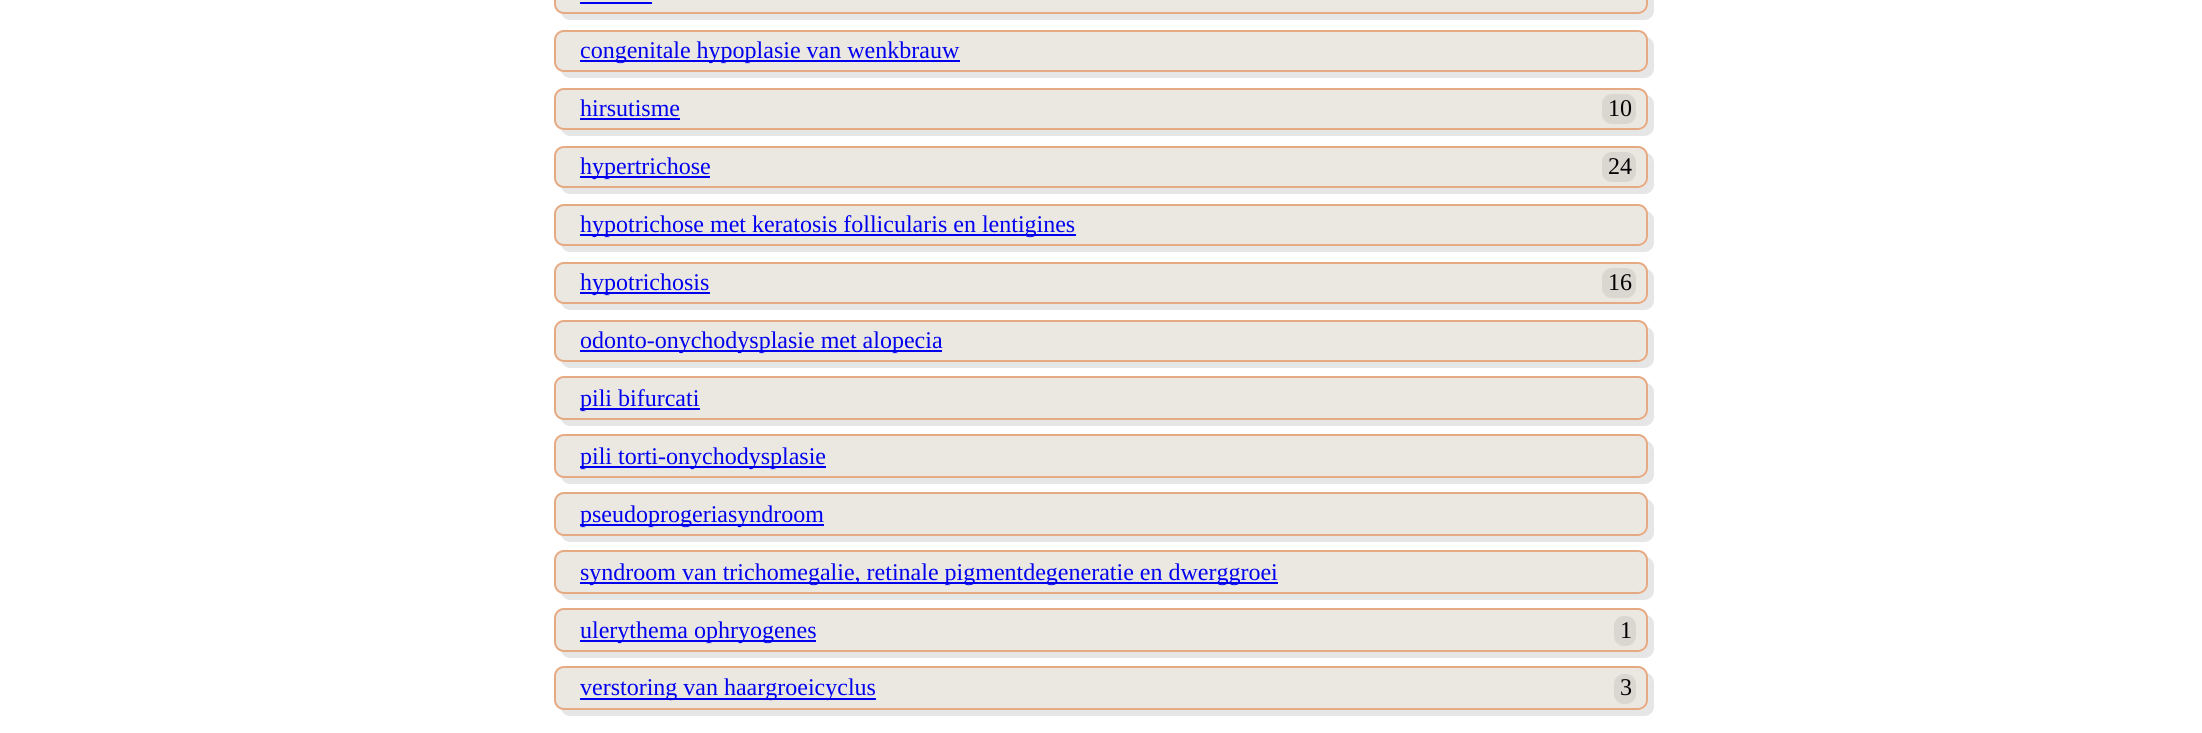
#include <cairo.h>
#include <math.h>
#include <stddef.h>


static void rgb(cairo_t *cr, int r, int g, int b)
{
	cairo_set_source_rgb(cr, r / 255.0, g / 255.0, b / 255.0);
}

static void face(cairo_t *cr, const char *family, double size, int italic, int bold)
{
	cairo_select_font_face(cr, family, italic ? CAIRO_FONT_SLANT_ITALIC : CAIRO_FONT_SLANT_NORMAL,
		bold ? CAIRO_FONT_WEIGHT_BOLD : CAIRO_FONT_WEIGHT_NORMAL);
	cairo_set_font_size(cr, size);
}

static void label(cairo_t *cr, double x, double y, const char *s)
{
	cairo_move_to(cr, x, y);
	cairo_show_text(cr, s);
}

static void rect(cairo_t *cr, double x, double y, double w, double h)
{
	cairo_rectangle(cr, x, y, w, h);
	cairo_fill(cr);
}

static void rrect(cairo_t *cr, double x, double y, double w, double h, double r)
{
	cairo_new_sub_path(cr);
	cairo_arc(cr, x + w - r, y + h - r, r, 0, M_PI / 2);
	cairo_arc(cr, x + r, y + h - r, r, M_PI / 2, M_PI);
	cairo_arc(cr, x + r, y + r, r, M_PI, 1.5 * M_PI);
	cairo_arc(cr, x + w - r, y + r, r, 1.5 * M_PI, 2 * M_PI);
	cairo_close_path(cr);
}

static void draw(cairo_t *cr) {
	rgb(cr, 255, 255, 255);
	cairo_paint(cr);
	rgb(cr, 230, 230, 230);
	cairo_new_path(cr);
	cairo_move_to(cr, 561, 13);
	cairo_curve_to(cr, 562, 17, 566, 20, 570, 20);
	cairo_line_to(cr, 1644, 20);
	cairo_curve_to(cr, 1650, 20, 1654, 16, 1654, 10);
	cairo_line_to(cr, 1654, -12);
	cairo_curve_to(cr, 1654, -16, 1651, -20, 1647, -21);
	cairo_curve_to(cr, 1649, -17, 1648, -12, 1648, -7);
	cairo_curve_to(cr, 1648, 1, 1650, 14, 1638, 14);
	cairo_line_to(cr, 564, 14);
	cairo_close_path(cr);
	cairo_fill(cr);
	rgb(cr, 235, 231, 225);
	rrect(cr, 555, -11, 1092, 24, 9);
	cairo_fill_preserve(cr);
	rgb(cr, 230, 170, 131);
	cairo_stroke(cr);
	rgb(cr, 0, 0, 238);
	rect(cr, 580, 2, 72, 2);
	rgb(cr, 230, 230, 230);
	cairo_new_path(cr);
	cairo_move_to(cr, 561, 71);
	cairo_curve_to(cr, 562, 75, 566, 78, 570, 78);
	cairo_line_to(cr, 1644, 78);
	cairo_curve_to(cr, 1650, 78, 1654, 74, 1654, 68);
	cairo_line_to(cr, 1654, 46);
	cairo_curve_to(cr, 1654, 42, 1651, 38, 1647, 37);
	cairo_curve_to(cr, 1649, 41, 1648, 46, 1648, 51);
	cairo_curve_to(cr, 1648, 59, 1650, 72, 1638, 72);
	cairo_line_to(cr, 564, 72);
	cairo_close_path(cr);
	cairo_fill(cr);
	rgb(cr, 235, 231, 225);
	rrect(cr, 555, 31, 1092, 40, 9);
	cairo_fill_preserve(cr);
	rgb(cr, 230, 170, 131);
	cairo_stroke(cr);
	rgb(cr, 0, 0, 238);
	rect(cr, 580, 60, 380, 2);
	face(cr, "Liberation Serif", 24, 0, 0);
	label(cr, 580, 58, "congenitale hypoplasie van wenkbrauw");
	rgb(cr, 230, 230, 230);
	cairo_new_path(cr);
	cairo_move_to(cr, 561, 129);
	cairo_curve_to(cr, 562, 133, 566, 136, 570, 136);
	cairo_line_to(cr, 1644, 136);
	cairo_curve_to(cr, 1650, 136, 1654, 132, 1654, 126);
	cairo_line_to(cr, 1654, 104);
	cairo_curve_to(cr, 1654, 100, 1651, 96, 1647, 95);
	cairo_curve_to(cr, 1649, 99, 1648, 104, 1648, 109);
	cairo_curve_to(cr, 1648, 117, 1650, 130, 1638, 130);
	cairo_line_to(cr, 564, 130);
	cairo_close_path(cr);
	cairo_fill(cr);
	rgb(cr, 235, 231, 225);
	rrect(cr, 555, 89, 1092, 40, 9);
	cairo_fill_preserve(cr);
	rgb(cr, 230, 170, 131);
	cairo_stroke(cr);
	rgb(cr, 0, 0, 238);
	label(cr, 580, 116, "hirsutisme");
	rect(cr, 580, 118, 100, 2);
	rgb(cr, 218, 214, 208);
	rrect(cr, 1602, 94, 34, 30, 10);
	cairo_fill(cr);
	rgb(cr, 0, 0, 0);
	label(cr, 1608, 116, "10");
	rgb(cr, 230, 230, 230);
	cairo_new_path(cr);
	cairo_move_to(cr, 561, 187);
	cairo_curve_to(cr, 562, 191, 566, 194, 570, 194);
	cairo_line_to(cr, 1644, 194);
	cairo_curve_to(cr, 1650, 194, 1654, 190, 1654, 184);
	cairo_line_to(cr, 1654, 162);
	cairo_curve_to(cr, 1654, 158, 1651, 154, 1647, 153);
	cairo_curve_to(cr, 1649, 157, 1648, 162, 1648, 167);
	cairo_curve_to(cr, 1648, 175, 1650, 188, 1638, 188);
	cairo_line_to(cr, 564, 188);
	cairo_close_path(cr);
	cairo_fill(cr);
	rgb(cr, 235, 231, 225);
	rrect(cr, 555, 147, 1092, 40, 9);
	cairo_fill_preserve(cr);
	rgb(cr, 230, 170, 131);
	cairo_stroke(cr);
	rgb(cr, 0, 0, 238);
	rect(cr, 580, 176, 130, 2);
	label(cr, 580, 174, "hypertrichose");
	rgb(cr, 218, 214, 208);
	rrect(cr, 1602, 152, 34, 30, 10);
	cairo_fill(cr);
	rgb(cr, 0, 0, 0);
	label(cr, 1608, 174, "24");
	rgb(cr, 230, 230, 230);
	cairo_new_path(cr);
	cairo_move_to(cr, 561, 245);
	cairo_curve_to(cr, 562, 249, 566, 252, 570, 252);
	cairo_line_to(cr, 1644, 252);
	cairo_curve_to(cr, 1650, 252, 1654, 248, 1654, 242);
	cairo_line_to(cr, 1654, 220);
	cairo_curve_to(cr, 1654, 216, 1651, 212, 1647, 211);
	cairo_curve_to(cr, 1649, 215, 1648, 220, 1648, 225);
	cairo_curve_to(cr, 1648, 233, 1650, 246, 1638, 246);
	cairo_line_to(cr, 564, 246);
	cairo_close_path(cr);
	cairo_fill(cr);
	rgb(cr, 235, 231, 225);
	rrect(cr, 555, 205, 1092, 40, 9);
	cairo_fill_preserve(cr);
	rgb(cr, 230, 170, 131);
	cairo_stroke(cr);
	rgb(cr, 0, 0, 238);
	rect(cr, 580, 234, 496, 2);
	label(cr, 580, 232, "hypotrichose met keratosis follicularis en lentigines");
	rgb(cr, 230, 230, 230);
	cairo_new_path(cr);
	cairo_move_to(cr, 561, 303);
	cairo_curve_to(cr, 562, 307, 566, 310, 570, 310);
	cairo_line_to(cr, 1644, 310);
	cairo_curve_to(cr, 1650, 310, 1654, 306, 1654, 300);
	cairo_line_to(cr, 1654, 278);
	cairo_curve_to(cr, 1654, 274, 1651, 270, 1647, 269);
	cairo_curve_to(cr, 1649, 273, 1648, 278, 1648, 283);
	cairo_curve_to(cr, 1648, 291, 1650, 304, 1638, 304);
	cairo_line_to(cr, 564, 304);
	cairo_close_path(cr);
	cairo_fill(cr);
	rgb(cr, 235, 231, 225);
	rrect(cr, 555, 263, 1092, 40, 9);
	cairo_fill_preserve(cr);
	rgb(cr, 230, 170, 131);
	cairo_stroke(cr);
	rgb(cr, 0, 0, 238);
	rect(cr, 580, 292, 130, 2);
	label(cr, 580, 290, "hypotrichosis");
	rgb(cr, 218, 214, 208);
	rrect(cr, 1602, 268, 34, 30, 10);
	cairo_fill(cr);
	rgb(cr, 0, 0, 0);
	label(cr, 1608, 290, "16");
	rgb(cr, 230, 230, 230);
	cairo_new_path(cr);
	cairo_move_to(cr, 561, 361);
	cairo_curve_to(cr, 562, 365, 566, 368, 570, 368);
	cairo_line_to(cr, 1644, 368);
	cairo_curve_to(cr, 1650, 368, 1654, 364, 1654, 358);
	cairo_line_to(cr, 1654, 336);
	cairo_curve_to(cr, 1654, 332, 1651, 328, 1647, 327);
	cairo_curve_to(cr, 1649, 331, 1648, 336, 1648, 341);
	cairo_curve_to(cr, 1648, 349, 1650, 362, 1638, 362);
	cairo_line_to(cr, 564, 362);
	cairo_close_path(cr);
	cairo_fill(cr);
	rgb(cr, 235, 231, 225);
	rrect(cr, 555, 321, 1092, 40, 9);
	cairo_fill_preserve(cr);
	rgb(cr, 230, 170, 131);
	cairo_stroke(cr);
	rgb(cr, 0, 0, 238);
	rect(cr, 580, 350, 362, 2);
	label(cr, 580, 348, "odonto-onychodysplasie met alopecia");
	rgb(cr, 230, 230, 230);
	cairo_new_path(cr);
	cairo_move_to(cr, 561, 419);
	cairo_curve_to(cr, 562, 423, 566, 426, 570, 426);
	cairo_line_to(cr, 1644, 426);
	cairo_curve_to(cr, 1650, 426, 1654, 422, 1654, 416);
	cairo_line_to(cr, 1654, 392);
	cairo_curve_to(cr, 1654, 388, 1651, 384, 1647, 383);
	cairo_curve_to(cr, 1649, 387, 1648, 393, 1648, 398);
	cairo_curve_to(cr, 1648, 406, 1650, 420, 1638, 420);
	cairo_line_to(cr, 564, 420);
	cairo_close_path(cr);
	cairo_fill(cr);
	rgb(cr, 235, 231, 225);
	rrect(cr, 555, 377, 1092, 42, 9);
	cairo_fill_preserve(cr);
	rgb(cr, 230, 170, 131);
	cairo_stroke(cr);
	rgb(cr, 0, 0, 238);
	rect(cr, 580, 408, 120, 2);
	label(cr, 580, 406, "pili bifurcati");
	rgb(cr, 230, 230, 230);
	cairo_new_path(cr);
	cairo_move_to(cr, 561, 477);
	cairo_curve_to(cr, 562, 481, 566, 484, 570, 484);
	cairo_line_to(cr, 1644, 484);
	cairo_curve_to(cr, 1650, 484, 1654, 480, 1654, 474);
	cairo_line_to(cr, 1654, 450);
	cairo_curve_to(cr, 1654, 446, 1651, 442, 1647, 441);
	cairo_curve_to(cr, 1649, 445, 1648, 451, 1648, 456);
	cairo_curve_to(cr, 1648, 464, 1650, 478, 1638, 478);
	cairo_line_to(cr, 564, 478);
	cairo_close_path(cr);
	cairo_fill(cr);
	rgb(cr, 235, 231, 225);
	rrect(cr, 555, 435, 1092, 42, 9);
	cairo_fill_preserve(cr);
	rgb(cr, 230, 170, 131);
	cairo_stroke(cr);
	rgb(cr, 0, 0, 238);
	rect(cr, 580, 466, 246, 2);
	label(cr, 580, 464, "pili torti-onychodysplasie");
	rgb(cr, 230, 230, 230);
	cairo_new_path(cr);
	cairo_move_to(cr, 561, 535);
	cairo_curve_to(cr, 562, 539, 566, 542, 570, 542);
	cairo_line_to(cr, 1644, 542);
	cairo_curve_to(cr, 1650, 542, 1654, 538, 1654, 532);
	cairo_line_to(cr, 1654, 508);
	cairo_curve_to(cr, 1654, 504, 1651, 500, 1647, 499);
	cairo_curve_to(cr, 1649, 503, 1648, 509, 1648, 514);
	cairo_curve_to(cr, 1648, 522, 1650, 536, 1638, 536);
	cairo_line_to(cr, 564, 536);
	cairo_close_path(cr);
	cairo_fill(cr);
	rgb(cr, 235, 231, 225);
	rrect(cr, 555, 493, 1092, 42, 9);
	cairo_fill_preserve(cr);
	rgb(cr, 230, 170, 131);
	cairo_stroke(cr);
	rgb(cr, 0, 0, 238);
	rect(cr, 580, 524, 244, 2);
	label(cr, 580, 522, "pseudoprogeriasyndroom");
	rgb(cr, 230, 230, 230);
	cairo_new_path(cr);
	cairo_move_to(cr, 561, 593);
	cairo_curve_to(cr, 562, 597, 566, 600, 570, 600);
	cairo_line_to(cr, 1644, 600);
	cairo_curve_to(cr, 1650, 600, 1654, 596, 1654, 590);
	cairo_line_to(cr, 1654, 566);
	cairo_curve_to(cr, 1654, 562, 1651, 558, 1647, 557);
	cairo_curve_to(cr, 1649, 561, 1648, 567, 1648, 572);
	cairo_curve_to(cr, 1648, 580, 1650, 594, 1638, 594);
	cairo_line_to(cr, 564, 594);
	cairo_close_path(cr);
	cairo_fill(cr);
	rgb(cr, 235, 231, 225);
	rrect(cr, 555, 551, 1092, 42, 9);
	cairo_fill_preserve(cr);
	rgb(cr, 230, 170, 131);
	cairo_stroke(cr);
	rgb(cr, 0, 0, 238);
	rect(cr, 580, 582, 698, 2);
	label(cr, 580, 580, "syndroom van trichomegalie, retinale pigmentdegeneratie en dwerggroei");
	rgb(cr, 230, 230, 230);
	cairo_new_path(cr);
	cairo_move_to(cr, 561, 651);
	cairo_curve_to(cr, 562, 655, 566, 658, 570, 658);
	cairo_line_to(cr, 1644, 658);
	cairo_curve_to(cr, 1650, 658, 1654, 654, 1654, 648);
	cairo_line_to(cr, 1654, 624);
	cairo_curve_to(cr, 1654, 620, 1651, 616, 1647, 615);
	cairo_curve_to(cr, 1649, 619, 1648, 625, 1648, 630);
	cairo_curve_to(cr, 1648, 638, 1650, 652, 1638, 652);
	cairo_line_to(cr, 564, 652);
	cairo_close_path(cr);
	cairo_fill(cr);
	rgb(cr, 235, 231, 225);
	rrect(cr, 555, 609, 1092, 42, 9);
	cairo_fill_preserve(cr);
	rgb(cr, 230, 170, 131);
	cairo_stroke(cr);
	rgb(cr, 0, 0, 238);
	rect(cr, 580, 640, 236, 2);
	label(cr, 580, 638, "ulerythema ophryogenes");
	rgb(cr, 218, 214, 208);
	rrect(cr, 1614, 616, 22, 30, 10);
	cairo_fill(cr);
	rgb(cr, 0, 0, 0);
	label(cr, 1620, 638, "1");
	rgb(cr, 230, 230, 230);
	cairo_new_path(cr);
	cairo_move_to(cr, 561, 709);
	cairo_curve_to(cr, 562, 713, 566, 716, 570, 716);
	cairo_line_to(cr, 1644, 716);
	cairo_curve_to(cr, 1650, 716, 1654, 712, 1654, 706);
	cairo_line_to(cr, 1654, 682);
	cairo_curve_to(cr, 1654, 678, 1651, 674, 1647, 673);
	cairo_curve_to(cr, 1649, 677, 1648, 683, 1648, 688);
	cairo_curve_to(cr, 1648, 696, 1650, 710, 1638, 710);
	cairo_line_to(cr, 564, 710);
	cairo_close_path(cr);
	cairo_fill(cr);
	rgb(cr, 235, 231, 225);
	rrect(cr, 555, 667, 1092, 42, 9);
	cairo_fill_preserve(cr);
	rgb(cr, 230, 170, 131);
	cairo_stroke(cr);
	rgb(cr, 0, 0, 238);
	rect(cr, 580, 698, 296, 2);
	label(cr, 580, 695, "verstoring van haargroeicyclus");
	rgb(cr, 218, 214, 208);
	rrect(cr, 1614, 674, 22, 30, 10);
	cairo_fill(cr);
	rgb(cr, 0, 0, 0);
	label(cr, 1620, 695, "3");
}

int main(void) {
	cairo_surface_t *surface = cairo_image_surface_create(CAIRO_FORMAT_RGB24, 2202, 733);
	cairo_t *cr = cairo_create(surface);
	cairo_font_options_t *options = cairo_font_options_create();
	cairo_font_options_set_hint_metrics(options, CAIRO_HINT_METRICS_OFF);
	cairo_font_options_set_hint_style(options, CAIRO_HINT_STYLE_NONE);
	cairo_set_font_options(cr, options);
	cairo_set_miter_limit(cr, 4);
	draw(cr);
	cairo_surface_write_to_png(surface, "render.png");
	cairo_font_options_destroy(options);
	cairo_destroy(cr);
	cairo_surface_destroy(surface);
	return 0;
}
